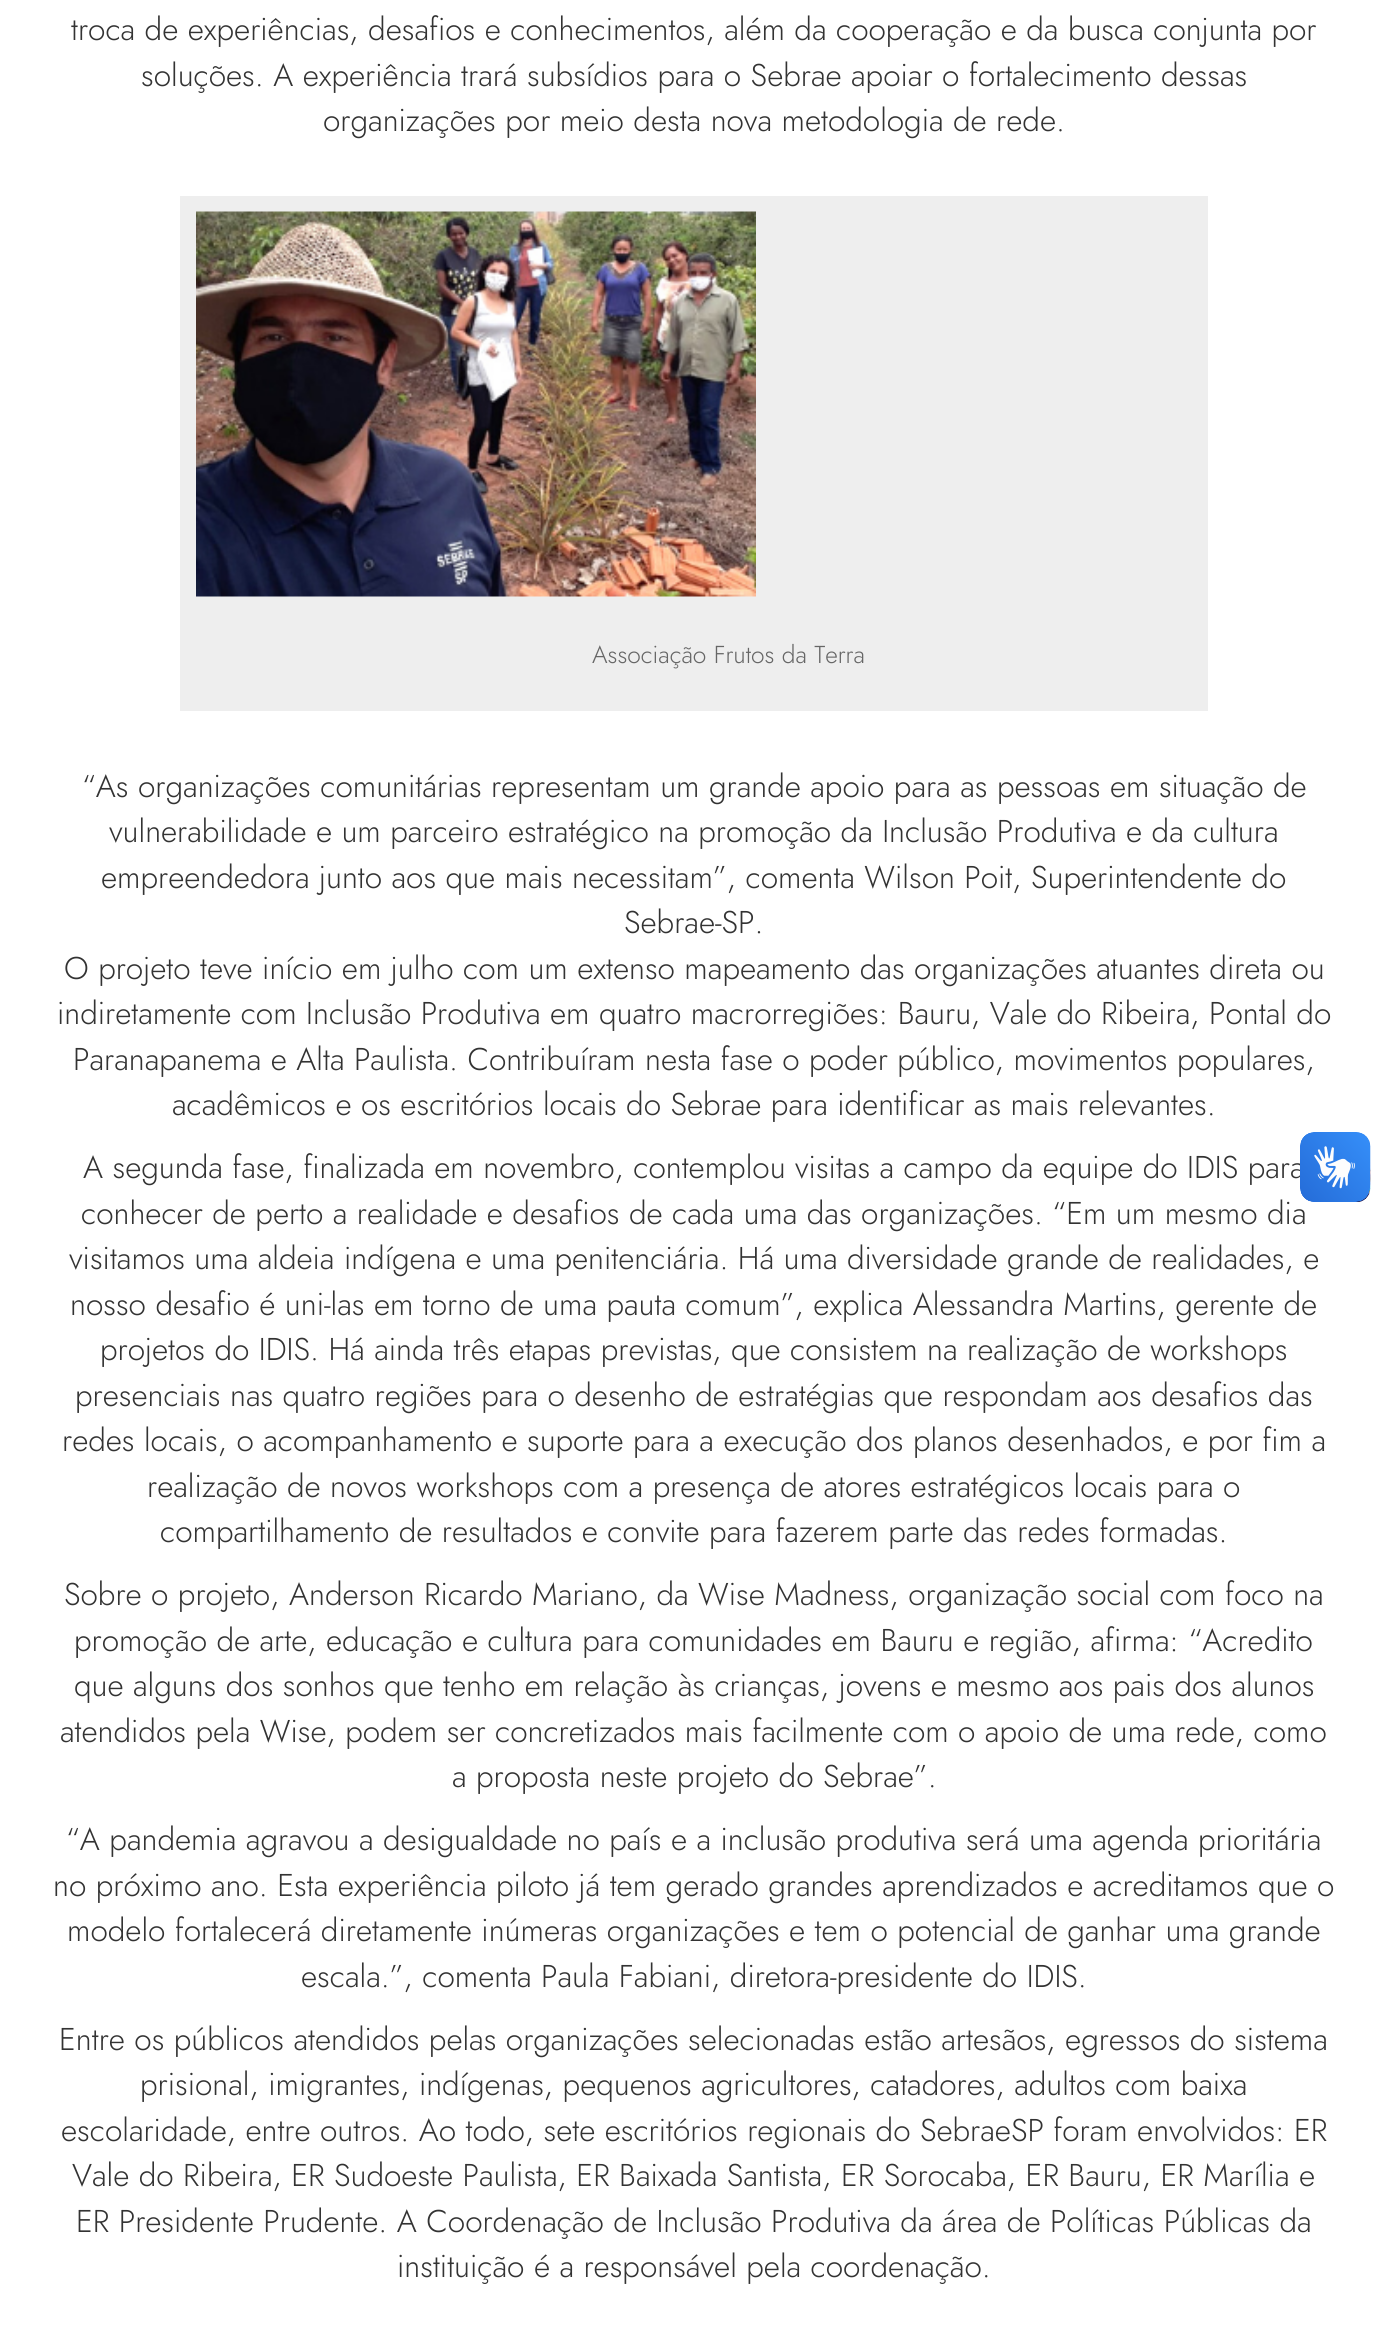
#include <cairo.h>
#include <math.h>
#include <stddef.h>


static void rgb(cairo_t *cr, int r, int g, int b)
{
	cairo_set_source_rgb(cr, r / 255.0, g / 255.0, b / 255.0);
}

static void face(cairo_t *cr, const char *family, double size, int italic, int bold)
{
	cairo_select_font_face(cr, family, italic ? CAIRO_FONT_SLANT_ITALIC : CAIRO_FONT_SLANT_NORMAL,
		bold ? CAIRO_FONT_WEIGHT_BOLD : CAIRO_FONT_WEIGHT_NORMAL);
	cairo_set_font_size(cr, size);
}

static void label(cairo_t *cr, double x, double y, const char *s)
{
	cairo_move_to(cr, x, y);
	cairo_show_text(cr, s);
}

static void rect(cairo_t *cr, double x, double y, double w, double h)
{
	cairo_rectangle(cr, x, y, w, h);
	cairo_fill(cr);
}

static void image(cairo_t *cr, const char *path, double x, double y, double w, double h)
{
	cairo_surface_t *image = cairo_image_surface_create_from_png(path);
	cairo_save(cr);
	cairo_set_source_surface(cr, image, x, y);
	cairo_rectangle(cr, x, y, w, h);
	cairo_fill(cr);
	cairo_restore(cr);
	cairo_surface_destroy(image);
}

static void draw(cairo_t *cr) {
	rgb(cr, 255, 255, 255);
	cairo_paint(cr);
	face(cr, "Jost Light", 31.5, 0, 0);
	rgb(cr, 51, 51, 51);
	label(cr, 71, 40, "troca de experiências, desafios e conhecimentos, além da cooperação e da busca conjunta por");
	label(cr, 141, 86, "soluções. A experiência trará subsídios para o Sebrae apoiar o fortalecimento dessas");
	label(cr, 323, 131, "organizações por meio desta nova metodologia de rede.");
	rgb(cr, 238, 238, 238);
	rect(cr, 180, 196, 1028, 515);
	image(cr, "image0.png", 196, 211, 560, 386);
	face(cr, "Jost Light", 24.5, 0, 0);
	rgb(cr, 102, 102, 102);
	label(cr, 592, 663, "Associação Frutos da Terra");
	face(cr, "Jost Light", 31.5, 0, 0);
	rgb(cr, 51, 51, 51);
	label(cr, 82, 797, "“As organizações comunitárias representam um grande apoio para as pessoas em situação de");
	label(cr, 109, 842, "vulnerabilidade e um parceiro estratégico na promoção da Inclusão Produtiva e da cultura");
	label(cr, 101, 888, "empreendedora junto aos que mais necessitam”, comenta Wilson Poit, Superintendente do");
	label(cr, 624, 933, "Sebrae-SP.");
	label(cr, 64, 979, "O projeto teve início em julho com um extenso mapeamento das organizações atuantes direta ou");
	label(cr, 57, 1024, "indiretamente com Inclusão Produtiva em quatro macrorregiões: Bauru, Vale do Ribeira, Pontal do");
	label(cr, 73, 1070, "Paranapanema e Alta Paulista. Contribuíram nesta fase o poder público, movimentos populares,");
	label(cr, 172, 1115, "acadêmicos e os escritórios locais do Sebrae para identificar as mais relevantes.");
	label(cr, 83, 1178, "A segunda fase, finalizada em novembro, contemplou visitas a campo da equipe do IDIS para");
	label(cr, 81, 1224, "conhecer de perto a realidade e desafios de cada uma das organizações. “Em um mesmo dia");
	label(cr, 69, 1269, "visitamos uma aldeia indígena e uma penitenciária. Há uma diversidade grande de realidades, e");
	label(cr, 70, 1315, "nosso desafio é uni-las em torno de uma pauta comum”, explica Alessandra Martins, gerente de");
	label(cr, 100, 1360, "projetos do IDIS. Há ainda três etapas previstas, que consistem na realização de workshops");
	label(cr, 75, 1406, "presenciais nas quatro regiões para o desenho de estratégias que respondam aos desafios das");
	label(cr, 62, 1451, "redes locais, o acompanhamento e suporte para a execução dos planos desenhados, e por fim a");
	label(cr, 147, 1497, "realização de novos workshops com a presença de atores estratégicos locais para o");
	label(cr, 160, 1542, "compartilhamento de resultados e convite para fazerem parte das redes formadas.");
	label(cr, 64, 1605, "Sobre o projeto, Anderson Ricardo Mariano, da Wise Madness, organização social com foco na");
	label(cr, 74, 1651, "promoção de arte, educação e cultura para comunidades em Bauru e região, afirma: “Acredito");
	label(cr, 74, 1696, "que alguns dos sonhos que tenho em relação às crianças, jovens e mesmo aos pais dos alunos");
	label(cr, 60, 1742, "atendidos pela Wise, podem ser concretizados mais facilmente com o apoio de uma rede, como");
	label(cr, 452, 1787, "a proposta neste projeto do Sebrae”.");
	label(cr, 66, 1850, "“A pandemia agravou a desigualdade no país e a inclusão produtiva será uma agenda prioritária");
	label(cr, 53, 1896, "no próximo ano. Esta experiência piloto já tem gerado grandes aprendizados e acreditamos que o");
	label(cr, 67, 1941, "modelo fortalecerá diretamente inúmeras organizações e tem o potencial de ganhar uma grande");
	label(cr, 301, 1987, "escala.”, comenta Paula Fabiani, diretora-presidente do IDIS.");
	label(cr, 59, 2050, "Entre os públicos atendidos pelas organizações selecionadas estão artesãos, egressos do sistema");
	label(cr, 140, 2095, "prisional, imigrantes, indígenas, pequenos agricultores, catadores, adultos com baixa");
	label(cr, 61, 2141, "escolaridade, entre outros. Ao todo, sete escritórios regionais do SebraeSP foram envolvidos: ER");
	label(cr, 72, 2186, "Vale do Ribeira, ER Sudoeste Paulista, ER Baixada Santista, ER Sorocaba, ER Bauru, ER Marília e");
	label(cr, 76, 2232, "ER Presidente Prudente. A Coordenação de Inclusão Produtiva da área de Políticas Públicas da");
	label(cr, 397, 2277, "instituição é a responsável pela coordenação.");
	image(cr, "image1.png", 1300, 1132, 71, 70);
	image(cr, "image2.png", 1300, 1132, 70, 70);
}

int main(void) {
	cairo_surface_t *surface = cairo_image_surface_create(CAIRO_FORMAT_RGB24, 1387, 2332);
	cairo_t *cr = cairo_create(surface);
	cairo_font_options_t *options = cairo_font_options_create();
	cairo_font_options_set_hint_metrics(options, CAIRO_HINT_METRICS_OFF);
	cairo_font_options_set_hint_style(options, CAIRO_HINT_STYLE_NONE);
	cairo_set_font_options(cr, options);
	cairo_set_miter_limit(cr, 4);
	draw(cr);
	cairo_surface_write_to_png(surface, "render.png");
	cairo_font_options_destroy(options);
	cairo_destroy(cr);
	cairo_surface_destroy(surface);
	return 0;
}
